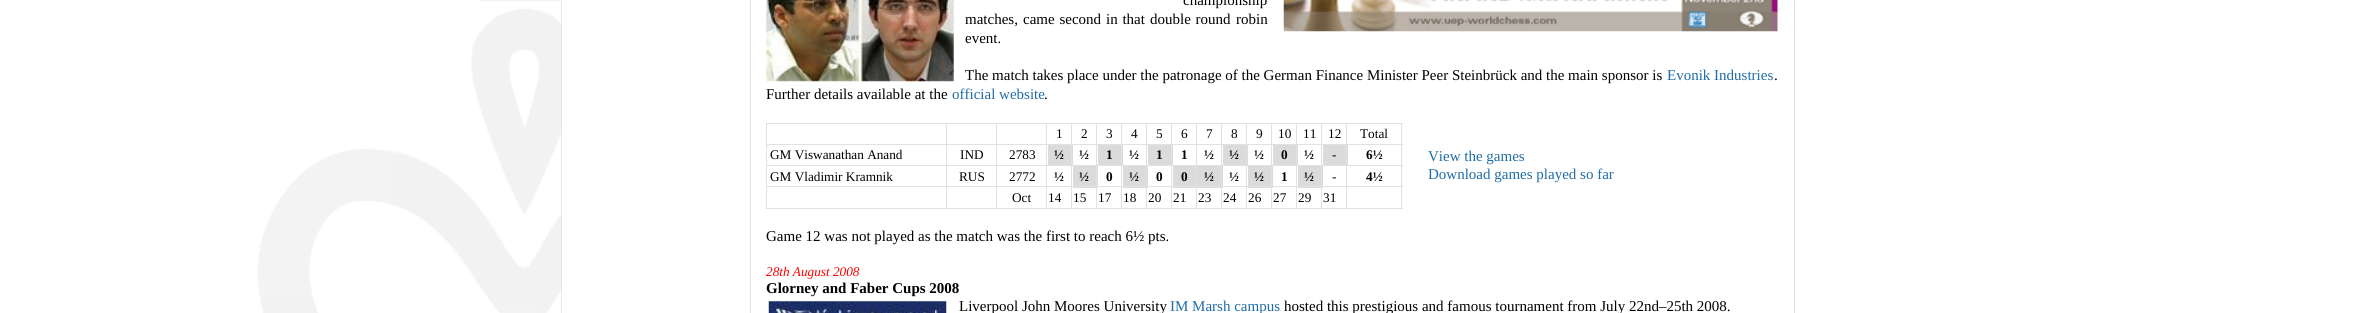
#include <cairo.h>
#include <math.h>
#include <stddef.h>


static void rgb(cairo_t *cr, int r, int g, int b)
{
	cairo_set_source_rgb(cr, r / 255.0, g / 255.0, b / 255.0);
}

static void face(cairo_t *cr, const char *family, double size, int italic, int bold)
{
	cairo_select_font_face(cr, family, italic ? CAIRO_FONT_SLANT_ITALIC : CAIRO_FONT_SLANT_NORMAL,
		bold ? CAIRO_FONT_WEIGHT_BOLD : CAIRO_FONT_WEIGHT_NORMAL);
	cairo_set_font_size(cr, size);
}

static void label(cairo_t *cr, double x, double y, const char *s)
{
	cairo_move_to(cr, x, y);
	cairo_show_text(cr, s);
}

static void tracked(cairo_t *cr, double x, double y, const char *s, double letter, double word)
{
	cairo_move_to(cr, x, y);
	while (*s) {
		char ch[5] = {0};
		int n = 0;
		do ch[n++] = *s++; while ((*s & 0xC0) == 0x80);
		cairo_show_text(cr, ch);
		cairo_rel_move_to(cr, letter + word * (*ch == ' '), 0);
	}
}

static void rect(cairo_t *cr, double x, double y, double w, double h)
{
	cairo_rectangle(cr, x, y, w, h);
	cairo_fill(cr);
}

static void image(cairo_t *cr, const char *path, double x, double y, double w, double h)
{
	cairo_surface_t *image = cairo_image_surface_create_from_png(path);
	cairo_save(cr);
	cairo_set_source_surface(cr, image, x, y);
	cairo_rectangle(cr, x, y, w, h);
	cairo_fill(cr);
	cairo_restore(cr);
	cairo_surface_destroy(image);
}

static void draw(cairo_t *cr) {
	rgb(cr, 255, 255, 255);
	cairo_paint(cr);
	image(cr, "image0.png", 257, 0, 304, 313);
	rgb(cr, 232, 232, 232);
	rect(cr, 561, 0, 1, 313);
	rgb(cr, 225, 225, 225);
	rect(cr, 1794, 0, 1, 313);
	rect(cr, 750, 0, 1, 313);
	image(cr, "image1.png", 766, 0, 188, 82);
	face(cr, "Liberation Serif", 15, 0, 0);
	rgb(cr, 0, 0, 0);
	label(cr, 1183, 5, "championship");
	label(cr, 965, 24, "matches,");
	tracked(cr, 1023, 24, "came second", 0, 1);
	tracked(cr, 1106, 24, "in that", 0, 1);
	tracked(cr, 1150, 24, "double round", 0, 1);
	label(cr, 1236, 24, "robin");
	label(cr, 965, 43, "event.");
	image(cr, "image2.png", 1283, 0, 495, 32);
	label(cr, 965, 80, "The match takes place under the patronage of the German Finance Minister Peer Steinbrück and the main sponsor is");
	rgb(cr, 31, 108, 167);
	label(cr, 1667, 80, "Evonik Industries");
	rgb(cr, 0, 0, 0);
	label(cr, 1774, 80, ".");
	label(cr, 766, 99, "Further details available at the");
	rgb(cr, 31, 108, 167);
	label(cr, 952, 99, "official website");
	rgb(cr, 0, 0, 0);
	label(cr, 1044, 99, ".");
	rgb(cr, 225, 225, 225);
	rect(cr, 766, 123, 637, 1);
	rect(cr, 1401, 123, 1, 86);
	rect(cr, 766, 208, 637, 1);
	rect(cr, 766, 123, 1, 86);
	rect(cr, 1346, 144, 57, 1);
	rgb(cr, 219, 219, 219);
	rect(cr, 1323, 145, 25, 20);
	rgb(cr, 225, 225, 225);
	rect(cr, 1346, 165, 57, 1);
	rgb(cr, 219, 219, 219);
	rect(cr, 1298, 166, 25, 22);
	rgb(cr, 225, 225, 225);
	rect(cr, 1346, 186, 57, 1);
	rect(cr, 1346, 186, 1, 23);
	rect(cr, 1321, 186, 27, 1);
	rect(cr, 1346, 165, 1, 23);
	rect(cr, 1321, 165, 27, 1);
	rect(cr, 1346, 144, 1, 22);
	rect(cr, 1321, 144, 27, 1);
	rect(cr, 1321, 186, 1, 23);
	rect(cr, 1296, 186, 27, 1);
	rect(cr, 1321, 165, 1, 23);
	rect(cr, 1296, 165, 27, 1);
	rect(cr, 1321, 144, 1, 22);
	rect(cr, 1296, 144, 27, 1);
	rgb(cr, 219, 219, 219);
	rect(cr, 1273, 145, 25, 20);
	rect(cr, 1248, 166, 25, 22);
	rgb(cr, 225, 225, 225);
	rect(cr, 1296, 186, 1, 23);
	rect(cr, 1271, 186, 27, 1);
	rect(cr, 1296, 165, 1, 23);
	rect(cr, 1271, 165, 27, 1);
	rect(cr, 1296, 144, 1, 22);
	rect(cr, 1271, 144, 27, 1);
	rect(cr, 1271, 186, 1, 23);
	rect(cr, 1246, 186, 27, 1);
	rect(cr, 1271, 165, 1, 23);
	rect(cr, 1246, 165, 27, 1);
	rect(cr, 1271, 144, 1, 22);
	rect(cr, 1246, 144, 27, 1);
	rgb(cr, 219, 219, 219);
	rect(cr, 1223, 145, 25, 20);
	rect(cr, 1173, 166, 50, 22);
	rgb(cr, 225, 225, 225);
	rect(cr, 1246, 186, 1, 23);
	rect(cr, 1221, 186, 27, 1);
	rect(cr, 1246, 165, 1, 23);
	rect(cr, 1221, 165, 27, 1);
	rect(cr, 1246, 144, 1, 22);
	rect(cr, 1221, 144, 27, 1);
	rect(cr, 1221, 186, 1, 23);
	rect(cr, 1196, 186, 27, 1);
	rect(cr, 1221, 165, 1, 23);
	rect(cr, 1196, 165, 27, 1);
	rect(cr, 1221, 144, 1, 22);
	rect(cr, 1196, 144, 27, 1);
	rect(cr, 1196, 186, 1, 23);
	rect(cr, 1171, 186, 27, 1);
	rect(cr, 1196, 165, 1, 23);
	rect(cr, 1171, 165, 27, 1);
	rect(cr, 1196, 144, 1, 22);
	rect(cr, 1171, 144, 27, 1);
	rgb(cr, 219, 219, 219);
	rect(cr, 1148, 145, 25, 20);
	rect(cr, 1123, 166, 25, 22);
	rgb(cr, 225, 225, 225);
	rect(cr, 1171, 186, 1, 23);
	rect(cr, 1146, 186, 27, 1);
	rect(cr, 1171, 165, 1, 23);
	rect(cr, 1146, 165, 27, 1);
	rect(cr, 1171, 144, 1, 22);
	rect(cr, 1146, 144, 27, 1);
	rect(cr, 1146, 186, 1, 23);
	rect(cr, 1121, 186, 27, 1);
	rect(cr, 1146, 165, 1, 23);
	rect(cr, 1121, 165, 27, 1);
	rect(cr, 1146, 144, 1, 22);
	rect(cr, 1121, 144, 27, 1);
	rgb(cr, 219, 219, 219);
	rect(cr, 1098, 145, 25, 20);
	rect(cr, 1073, 166, 25, 22);
	rgb(cr, 225, 225, 225);
	rect(cr, 1121, 186, 1, 23);
	rect(cr, 1096, 186, 27, 1);
	rect(cr, 1121, 165, 1, 23);
	rect(cr, 1096, 165, 27, 1);
	rect(cr, 1121, 144, 1, 22);
	rect(cr, 1096, 144, 27, 1);
	rect(cr, 1096, 186, 1, 23);
	rect(cr, 1071, 186, 27, 1);
	rect(cr, 1096, 165, 1, 23);
	rect(cr, 1071, 165, 27, 1);
	rect(cr, 1096, 144, 1, 22);
	rect(cr, 1071, 144, 27, 1);
	rgb(cr, 219, 219, 219);
	rect(cr, 1048, 145, 25, 20);
	rgb(cr, 225, 225, 225);
	rect(cr, 1071, 186, 1, 23);
	rect(cr, 1046, 186, 27, 1);
	rect(cr, 1071, 165, 1, 23);
	rect(cr, 1046, 165, 27, 1);
	rect(cr, 1071, 144, 1, 22);
	rect(cr, 1046, 144, 27, 1);
	rect(cr, 1046, 186, 1, 23);
	rect(cr, 996, 186, 52, 1);
	rect(cr, 1046, 165, 1, 23);
	rect(cr, 996, 165, 52, 1);
	rect(cr, 1046, 144, 1, 22);
	rect(cr, 996, 144, 52, 1);
	rect(cr, 996, 186, 1, 23);
	rect(cr, 946, 186, 52, 1);
	rect(cr, 996, 165, 1, 23);
	rect(cr, 946, 165, 52, 1);
	rect(cr, 996, 144, 1, 22);
	rect(cr, 946, 144, 52, 1);
	rect(cr, 946, 186, 1, 23);
	rect(cr, 766, 186, 182, 1);
	rect(cr, 946, 165, 1, 23);
	rect(cr, 766, 165, 182, 1);
	rect(cr, 946, 144, 1, 22);
	rect(cr, 766, 144, 182, 1);
	rect(cr, 946, 123, 1, 22);
	rect(cr, 996, 123, 1, 22);
	rect(cr, 1046, 123, 1, 22);
	face(cr, "Liberation Serif", 13.25, 0, 0);
	rgb(cr, 0, 0, 0);
	label(cr, 1056, 138, "1");
	rgb(cr, 225, 225, 225);
	rect(cr, 1071, 123, 1, 22);
	rgb(cr, 0, 0, 0);
	label(cr, 1081, 138, "2");
	rgb(cr, 225, 225, 225);
	rect(cr, 1096, 123, 1, 22);
	rgb(cr, 0, 0, 0);
	label(cr, 1106, 138, "3");
	rgb(cr, 225, 225, 225);
	rect(cr, 1121, 123, 1, 22);
	rgb(cr, 0, 0, 0);
	label(cr, 1131, 138, "4");
	rgb(cr, 225, 225, 225);
	rect(cr, 1146, 123, 1, 22);
	rgb(cr, 0, 0, 0);
	label(cr, 1156, 138, "5");
	rgb(cr, 225, 225, 225);
	rect(cr, 1171, 123, 1, 22);
	rgb(cr, 0, 0, 0);
	label(cr, 1181, 138, "6");
	rgb(cr, 225, 225, 225);
	rect(cr, 1196, 123, 1, 22);
	rgb(cr, 0, 0, 0);
	label(cr, 1206, 138, "7");
	rgb(cr, 225, 225, 225);
	rect(cr, 1221, 123, 1, 22);
	rgb(cr, 0, 0, 0);
	label(cr, 1231, 138, "8");
	rgb(cr, 225, 225, 225);
	rect(cr, 1246, 123, 1, 22);
	rgb(cr, 0, 0, 0);
	label(cr, 1256, 138, "9");
	rgb(cr, 225, 225, 225);
	rect(cr, 1271, 123, 1, 22);
	rgb(cr, 0, 0, 0);
	label(cr, 1278, 138, "10");
	rgb(cr, 225, 225, 225);
	rect(cr, 1296, 123, 1, 22);
	rgb(cr, 0, 0, 0);
	label(cr, 1303, 138, "11");
	rgb(cr, 225, 225, 225);
	rect(cr, 1321, 123, 1, 22);
	rgb(cr, 0, 0, 0);
	label(cr, 1328, 138, "12");
	rgb(cr, 225, 225, 225);
	rect(cr, 1346, 123, 1, 22);
	rgb(cr, 0, 0, 0);
	label(cr, 1360, 138, "Total");
	label(cr, 770, 159, "GM Viswanathan Anand");
	label(cr, 960, 159, "IND");
	label(cr, 1009, 159, "2783");
	face(cr, "Liberation Serif", 13.25, 0, 1);
	label(cr, 1054, 159, "½");
	label(cr, 1079, 159, "½");
	label(cr, 1106, 159, "1");
	label(cr, 1129, 159, "½");
	label(cr, 1156, 159, "1");
	label(cr, 1181, 159, "1");
	label(cr, 1204, 159, "½");
	label(cr, 1229, 159, "½");
	label(cr, 1254, 159, "½");
	label(cr, 1281, 159, "0");
	label(cr, 1304, 159, "½");
	face(cr, "Liberation Serif", 13.25, 0, 0);
	label(cr, 1332, 159, "-");
	face(cr, "Liberation Serif", 13.25, 0, 1);
	label(cr, 1366, 159, "6½");
	face(cr, "Liberation Serif", 13.25, 0, 0);
	label(cr, 770, 181, "GM Vladimir Kramnik");
	label(cr, 959, 181, "RUS");
	label(cr, 1009, 181, "2772");
	face(cr, "Liberation Serif", 13.25, 0, 1);
	label(cr, 1054, 181, "½");
	label(cr, 1079, 181, "½");
	label(cr, 1106, 181, "0");
	label(cr, 1129, 181, "½");
	label(cr, 1156, 181, "0");
	label(cr, 1181, 181, "0");
	label(cr, 1204, 181, "½");
	label(cr, 1229, 181, "½");
	label(cr, 1254, 181, "½");
	label(cr, 1281, 181, "1");
	label(cr, 1304, 181, "½");
	face(cr, "Liberation Serif", 13.25, 0, 0);
	label(cr, 1332, 181, "-");
	face(cr, "Liberation Serif", 13.25, 0, 1);
	label(cr, 1366, 181, "4½");
	face(cr, "Liberation Serif", 13.25, 0, 0);
	label(cr, 1012, 202, "Oct");
	label(cr, 1048, 202, "14");
	label(cr, 1073, 202, "15");
	label(cr, 1098, 202, "17");
	label(cr, 1123, 202, "18");
	label(cr, 1148, 202, "20");
	label(cr, 1173, 202, "21");
	label(cr, 1198, 202, "23");
	label(cr, 1223, 202, "24");
	label(cr, 1248, 202, "26");
	label(cr, 1273, 202, "27");
	label(cr, 1298, 202, "29");
	label(cr, 1323, 202, "31");
	face(cr, "Liberation Serif", 15, 0, 0);
	rgb(cr, 31, 108, 167);
	label(cr, 1428, 161, "View the games");
	label(cr, 1428, 179, "Download games played so far");
	rgb(cr, 0, 0, 0);
	label(cr, 766, 241, "Game 12 was not played as the match was the first to reach 6½ pts.");
	face(cr, "Liberation Serif", 13.25, 1, 0);
	rgb(cr, 255, 0, 0);
	label(cr, 766, 276, "28th August 2008");
	face(cr, "Liberation Serif", 15, 0, 1);
	rgb(cr, 0, 0, 0);
	label(cr, 766, 293, "Glorney and Faber Cups 2008");
	image(cr, "image3.png", 768, 301, 179, 12);
	face(cr, "Liberation Serif", 15, 0, 0);
	label(cr, 959, 311, "Liverpool John Moores University");
	rgb(cr, 31, 108, 167);
	label(cr, 1170, 311, "IM Marsh campus");
	rgb(cr, 0, 0, 0);
	label(cr, 1284, 311, "hosted this prestigious and famous tournament from July 22nd–25th 2008.");
}

int main(void) {
	cairo_surface_t *surface = cairo_image_surface_create(CAIRO_FORMAT_RGB24, 2354, 313);
	cairo_t *cr = cairo_create(surface);
	cairo_font_options_t *options = cairo_font_options_create();
	cairo_font_options_set_hint_metrics(options, CAIRO_HINT_METRICS_OFF);
	cairo_font_options_set_hint_style(options, CAIRO_HINT_STYLE_NONE);
	cairo_set_font_options(cr, options);
	cairo_set_miter_limit(cr, 4);
	draw(cr);
	cairo_surface_write_to_png(surface, "render.png");
	cairo_font_options_destroy(options);
	cairo_destroy(cr);
	cairo_surface_destroy(surface);
	return 0;
}
